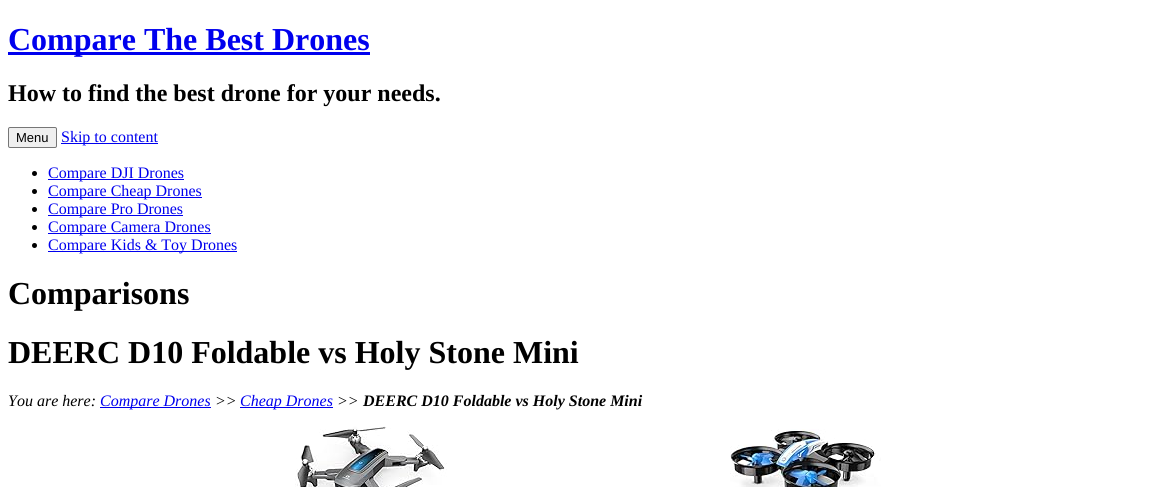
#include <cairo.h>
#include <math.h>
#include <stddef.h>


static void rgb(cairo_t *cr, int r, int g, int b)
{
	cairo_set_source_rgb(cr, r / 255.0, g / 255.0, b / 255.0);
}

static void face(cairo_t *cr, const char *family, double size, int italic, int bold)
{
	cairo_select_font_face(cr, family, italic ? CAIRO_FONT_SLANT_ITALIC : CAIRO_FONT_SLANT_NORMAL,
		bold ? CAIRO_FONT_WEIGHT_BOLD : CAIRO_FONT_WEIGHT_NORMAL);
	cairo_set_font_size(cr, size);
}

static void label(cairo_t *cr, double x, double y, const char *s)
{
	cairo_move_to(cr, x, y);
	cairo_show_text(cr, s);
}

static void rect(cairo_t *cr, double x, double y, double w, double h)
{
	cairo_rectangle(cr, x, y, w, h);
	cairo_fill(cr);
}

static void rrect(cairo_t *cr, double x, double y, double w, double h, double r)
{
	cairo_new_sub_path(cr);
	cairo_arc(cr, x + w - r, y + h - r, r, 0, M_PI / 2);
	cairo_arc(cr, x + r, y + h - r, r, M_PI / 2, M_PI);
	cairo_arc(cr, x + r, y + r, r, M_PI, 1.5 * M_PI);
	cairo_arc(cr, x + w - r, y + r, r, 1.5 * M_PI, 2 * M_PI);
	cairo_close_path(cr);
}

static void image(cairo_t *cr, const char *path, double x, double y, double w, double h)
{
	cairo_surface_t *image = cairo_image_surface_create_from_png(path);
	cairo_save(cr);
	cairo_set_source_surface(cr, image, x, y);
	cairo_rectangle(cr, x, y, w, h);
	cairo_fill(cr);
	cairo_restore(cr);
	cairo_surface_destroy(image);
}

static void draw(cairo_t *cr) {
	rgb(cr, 255, 255, 255);
	cairo_paint(cr);
	rgb(cr, 0, 0, 238);
	rect(cr, 8, 52, 362, 3);
	face(cr, "Liberation Serif", 32, 0, 1);
	label(cr, 8, 50, "Compare The Best Drones");
	face(cr, "Liberation Serif", 24, 0, 1);
	rgb(cr, 0, 0, 0);
	label(cr, 8, 101, "How to find the best drone for your needs.");
	rgb(cr, 239, 239, 239);
	rrect(cr, 8.5, 127.5, 48, 20, 1.5);
	cairo_fill_preserve(cr);
	rgb(cr, 118, 118, 118);
	cairo_set_line_width(cr, 1);
	cairo_stroke(cr);
	face(cr, "Liberation Sans", 13, 0, 0);
	rgb(cr, 0, 0, 0);
	label(cr, 16, 142, "Menu");
	rgb(cr, 0, 0, 238);
	rect(cr, 61, 143, 97, 1);
	face(cr, "Liberation Serif", 16, 0, 0);
	label(cr, 61, 142, "Skip to content");
	rgb(cr, 0, 0, 0);
	cairo_new_path(cr);
	cairo_arc(cr, 34.5, 173.5, 2.5, 0, 2 * M_PI);
	cairo_fill(cr);
	rgb(cr, 0, 0, 238);
	rect(cr, 48, 179, 136, 1);
	label(cr, 48, 178, "Compare DJI Drones");
	rgb(cr, 0, 0, 0);
	cairo_new_path(cr);
	cairo_arc(cr, 34.5, 191.5, 2.5, 0, 2 * M_PI);
	cairo_fill(cr);
	rgb(cr, 0, 0, 238);
	rect(cr, 48, 197, 154, 1);
	label(cr, 48, 196, "Compare Cheap Drones");
	rgb(cr, 0, 0, 0);
	cairo_new_path(cr);
	cairo_arc(cr, 34.5, 209.5, 2.5, 0, 2 * M_PI);
	cairo_fill(cr);
	rgb(cr, 0, 0, 238);
	rect(cr, 48, 215, 135, 1);
	label(cr, 48, 214, "Compare Pro Drones");
	rgb(cr, 0, 0, 0);
	cairo_new_path(cr);
	cairo_arc(cr, 34.5, 227.5, 2.5, 0, 2 * M_PI);
	cairo_fill(cr);
	rgb(cr, 0, 0, 238);
	rect(cr, 48, 233, 163, 1);
	label(cr, 48, 232, "Compare Camera Drones");
	rgb(cr, 0, 0, 0);
	cairo_new_path(cr);
	cairo_arc(cr, 34.5, 245.5, 2.5, 0, 2 * M_PI);
	cairo_fill(cr);
	rgb(cr, 0, 0, 238);
	rect(cr, 48, 251, 189, 1);
	label(cr, 48, 250, "Compare Kids & Toy Drones");
	face(cr, "Liberation Serif", 32, 0, 1);
	rgb(cr, 0, 0, 0);
	label(cr, 8, 304, "Comparisons");
	label(cr, 8, 363, "DEERC D10 Foldable vs Holy Stone Mini");
	face(cr, "Liberation Serif", 16, 1, 0);
	label(cr, 8, 406, "You are here:");
	rgb(cr, 0, 0, 238);
	rect(cr, 100, 407, 111, 1);
	label(cr, 100, 406, "Compare Drones");
	rgb(cr, 0, 0, 0);
	label(cr, 215, 406, ">>");
	rgb(cr, 0, 0, 238);
	rect(cr, 240, 407, 93, 1);
	label(cr, 240, 406, "Cheap Drones");
	rgb(cr, 0, 0, 0);
	label(cr, 337, 406, ">>");
	face(cr, "Liberation Serif", 16, 1, 1);
	label(cr, 363, 406, "DEERC D10 Foldable vs Holy Stone Mini");
	image(cr, "image0.png", 295, 426, 152, 61);
	image(cr, "image1.png", 730, 429, 151, 58);
}

int main(void) {
	cairo_surface_t *surface = cairo_image_surface_create(CAIRO_FORMAT_RGB24, 1164, 487);
	cairo_t *cr = cairo_create(surface);
	cairo_font_options_t *options = cairo_font_options_create();
	cairo_font_options_set_hint_metrics(options, CAIRO_HINT_METRICS_OFF);
	cairo_font_options_set_hint_style(options, CAIRO_HINT_STYLE_NONE);
	cairo_set_font_options(cr, options);
	cairo_set_miter_limit(cr, 4);
	draw(cr);
	cairo_surface_write_to_png(surface, "render.png");
	cairo_font_options_destroy(options);
	cairo_destroy(cr);
	cairo_surface_destroy(surface);
	return 0;
}
